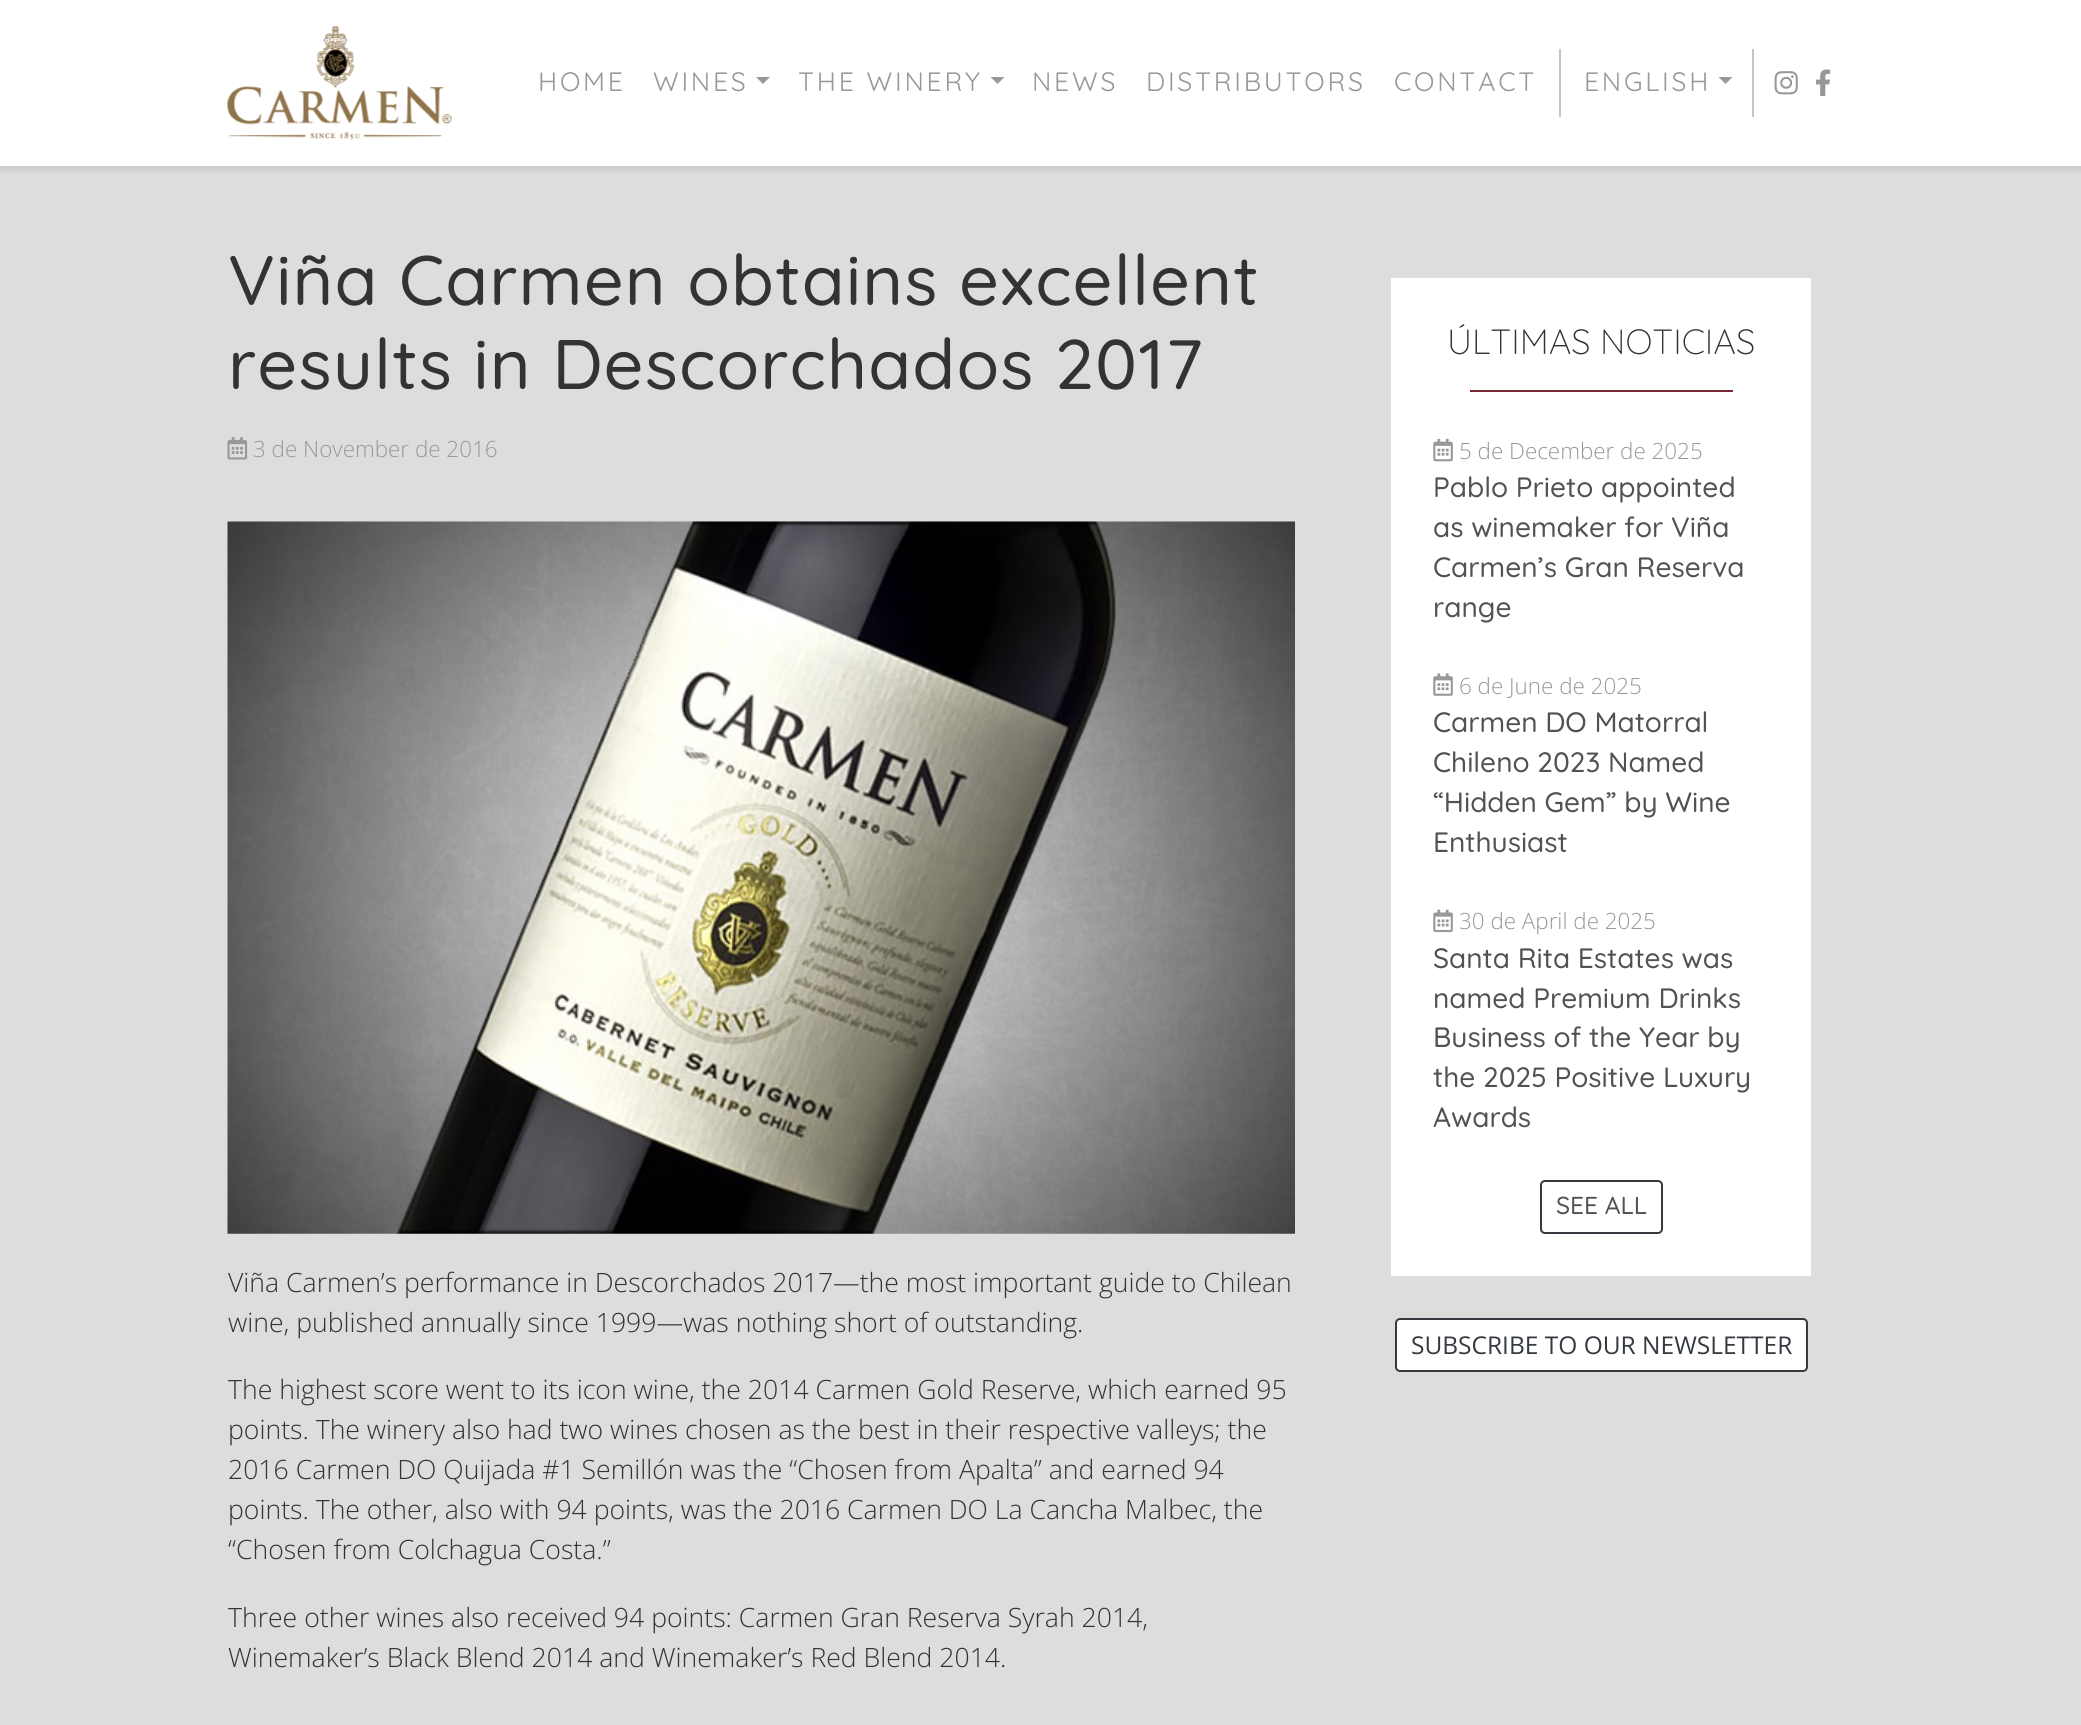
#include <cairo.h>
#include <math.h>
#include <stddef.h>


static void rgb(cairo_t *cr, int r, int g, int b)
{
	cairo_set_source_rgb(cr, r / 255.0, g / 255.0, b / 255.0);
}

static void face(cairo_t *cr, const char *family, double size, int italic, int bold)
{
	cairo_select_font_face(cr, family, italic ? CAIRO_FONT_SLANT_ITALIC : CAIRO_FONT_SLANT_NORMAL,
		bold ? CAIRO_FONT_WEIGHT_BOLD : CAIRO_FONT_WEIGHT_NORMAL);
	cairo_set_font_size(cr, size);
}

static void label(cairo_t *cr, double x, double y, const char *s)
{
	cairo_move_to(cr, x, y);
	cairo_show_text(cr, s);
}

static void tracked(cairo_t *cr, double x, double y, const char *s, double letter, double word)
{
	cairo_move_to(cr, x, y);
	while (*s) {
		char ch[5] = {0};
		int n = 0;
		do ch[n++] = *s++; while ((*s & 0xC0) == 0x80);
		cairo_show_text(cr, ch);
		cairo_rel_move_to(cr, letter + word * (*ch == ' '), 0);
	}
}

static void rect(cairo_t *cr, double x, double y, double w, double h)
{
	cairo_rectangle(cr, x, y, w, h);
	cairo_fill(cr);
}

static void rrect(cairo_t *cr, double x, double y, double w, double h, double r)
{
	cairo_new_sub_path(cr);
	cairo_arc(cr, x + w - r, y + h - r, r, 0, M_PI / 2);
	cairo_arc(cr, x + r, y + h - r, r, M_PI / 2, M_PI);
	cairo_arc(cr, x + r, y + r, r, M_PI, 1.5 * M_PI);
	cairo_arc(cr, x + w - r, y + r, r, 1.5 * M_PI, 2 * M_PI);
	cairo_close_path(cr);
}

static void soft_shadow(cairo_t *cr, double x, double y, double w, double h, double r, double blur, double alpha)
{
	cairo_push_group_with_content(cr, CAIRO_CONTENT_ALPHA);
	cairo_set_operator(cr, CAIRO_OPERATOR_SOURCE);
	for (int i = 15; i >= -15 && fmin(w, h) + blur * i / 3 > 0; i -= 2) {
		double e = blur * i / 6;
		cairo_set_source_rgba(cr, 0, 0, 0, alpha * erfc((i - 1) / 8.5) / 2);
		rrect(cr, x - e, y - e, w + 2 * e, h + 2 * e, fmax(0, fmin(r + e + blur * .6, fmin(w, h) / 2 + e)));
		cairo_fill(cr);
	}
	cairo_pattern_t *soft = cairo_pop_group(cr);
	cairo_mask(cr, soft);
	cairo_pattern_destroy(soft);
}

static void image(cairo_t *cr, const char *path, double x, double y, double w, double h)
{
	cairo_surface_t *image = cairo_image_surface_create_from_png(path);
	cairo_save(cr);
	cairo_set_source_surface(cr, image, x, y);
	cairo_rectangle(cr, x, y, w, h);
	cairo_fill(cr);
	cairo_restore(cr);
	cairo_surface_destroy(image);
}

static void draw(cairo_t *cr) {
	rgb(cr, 255, 255, 255);
	cairo_paint(cr);
	rgb(cr, 221, 221, 221);
	rect(cr, 0, 166, 2081, 1559);
	cairo_save(cr);
	cairo_rectangle(cr, 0, 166, 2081, 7);
	cairo_clip(cr);
	rgb(cr, 0, 0, 0);
	soft_shadow(cr, 0, 4, 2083, 166, 0, 3.5, 0.1);
	cairo_restore(cr);
	image(cr, "image0.png", 227, 26, 225, 115);
	face(cr, "Quicksand", 26.6, 0, 0);
	rgb(cr, 152, 152, 152);
	tracked(cr, 538, 91, "HOME", 2.75, 0);
	tracked(cr, 653, 91, "WINES", 2.75, 0);
	cairo_new_path(cr);
	cairo_move_to(cr, 756, 77);
	cairo_line_to(cr, 770, 77);
	cairo_line_to(cr, 763, 84);
	cairo_close_path(cr);
	cairo_fill(cr);
	tracked(cr, 798, 91, "THE WINERY", 2.75, 0);
	cairo_new_path(cr);
	cairo_move_to(cr, 990.5, 77);
	cairo_line_to(cr, 1004.5, 77);
	cairo_line_to(cr, 997.5, 84);
	cairo_close_path(cr);
	cairo_fill(cr);
	tracked(cr, 1032, 91, "NEWS", 2.75, 0);
	tracked(cr, 1146, 91, "DISTRIBUTORS", 2.75, 0);
	tracked(cr, 1394, 91, "CONTACT", 2.75, 0);
	rgb(cr, 197, 197, 197);
	rect(cr, 1752, 49, 2, 68);
	rect(cr, 1559, 49, 2, 68);
	rgb(cr, 152, 152, 152);
	tracked(cr, 1584, 91, "ENGLISH", 2.75, 0);
	cairo_new_path(cr);
	cairo_move_to(cr, 1718.5, 77);
	cairo_line_to(cr, 1732.5, 77);
	cairo_line_to(cr, 1725.5, 84);
	cairo_close_path(cr);
	cairo_fill(cr);
	image(cr, "image1.png", 1774, 71, 24, 24);
	image(cr, "image2.png", 1815, 69, 16, 28);
	face(cr, "Quicksand Medium", 70, 0, 0);
	rgb(cr, 51, 51, 51);
	tracked(cr, 228, 305, "Viña Carmen obtains excellent", 1.1, 0);
	tracked(cr, 228, 389, "results in Descorchados 2017", 1.1, 0);
	image(cr, "image3.png", 227, 437, 21, 23);
	face(cr, "Open Sans Light", 22.4, 0, 0);
	rgb(cr, 152, 152, 152);
	label(cr, 253, 457, "3 de November de 2016");
	image(cr, "image4.png", 227, 521, 1068, 713);
	face(cr, "Open Sans Light", 26.6, 0, 0);
	rgb(cr, 51, 51, 51);
	label(cr, 228, 1292, "Viña Carmen’s performance in Descorchados 2017—the most important guide to Chilean");
	label(cr, 228, 1332, "wine, published annually since 1999—was nothing short of outstanding.");
	label(cr, 228, 1399, "The highest score went to its icon wine, the 2014 Carmen Gold Reserve, which earned 95");
	label(cr, 228, 1439, "points. The winery also had two wines chosen as the best in their respective valleys; the");
	label(cr, 228, 1479, "2016 Carmen DO Quijada #1 Semillón was the “Chosen from Apalta” and earned 94");
	label(cr, 228, 1519, "points. The other, also with 94 points, was the 2016 Carmen DO La Cancha Malbec, the");
	label(cr, 228, 1559, "“Chosen from Colchagua Costa.”");
	label(cr, 228, 1627, "Three other wines also received 94 points: Carmen Gran Reserva Syrah 2014,");
	label(cr, 228, 1667, "Winemaker’s Black Blend 2014 and Winemaker’s Red Blend 2014.");
	rgb(cr, 255, 255, 255);
	rect(cr, 1391, 278, 420, 998);
	face(cr, "Quicksand Light", 35, 0, 0);
	rgb(cr, 51, 51, 51);
	label(cr, 1447, 354, "ÚLTIMAS NOTICIAS");
	rgb(cr, 119, 40, 53);
	rect(cr, 1470, 390, 263, 2);
	image(cr, "image5.png", 1433, 438, 20, 24);
	face(cr, "Open Sans Light", 22.4, 0, 0);
	rgb(cr, 152, 152, 152);
	label(cr, 1459, 459, "5 de December de 2025");
	face(cr, "Quicksand Medium", 28, 0, 0);
	rgb(cr, 82, 82, 82);
	label(cr, 1433, 497, "Pablo Prieto appointed");
	label(cr, 1433, 537, "as winemaker for Viña");
	label(cr, 1433, 577, "Carmen’s Gran Reserva");
	label(cr, 1433, 617, "range");
	image(cr, "image6.png", 1433, 673, 20, 23);
	face(cr, "Open Sans Light", 22.4, 0, 0);
	rgb(cr, 152, 152, 152);
	label(cr, 1459, 694, "6 de June de 2025");
	face(cr, "Quicksand Medium", 28, 0, 0);
	rgb(cr, 82, 82, 82);
	label(cr, 1433, 732, "Carmen DO Matorral");
	label(cr, 1433, 772, "Chileno 2023 Named");
	label(cr, 1433, 812, "“Hidden Gem” by Wine");
	label(cr, 1433, 852, "Enthusiast");
	image(cr, "image7.png", 1433, 909, 20, 24);
	face(cr, "Open Sans Light", 22.4, 0, 0);
	rgb(cr, 152, 152, 152);
	label(cr, 1459, 929, "30 de April de 2025");
	face(cr, "Quicksand Medium", 28, 0, 0);
	rgb(cr, 82, 82, 82);
	label(cr, 1433, 968, "Santa Rita Estates was");
	label(cr, 1433, 1008, "named Premium Drinks");
	label(cr, 1433, 1047, "Business of the Year by");
	label(cr, 1433, 1087, "the 2025 Positive Luxury");
	label(cr, 1433, 1127, "Awards");
	rrect(cr, 1541, 1181, 121, 52, 4);
	rgb(cr, 52, 58, 64);
	cairo_stroke(cr);
	face(cr, "Quicksand Medium", 24.5, 0, 0);
	rgb(cr, 82, 82, 82);
	label(cr, 1556, 1214, "SEE ALL");
	rgb(cr, 255, 255, 255);
	rrect(cr, 1396, 1319, 411, 52, 4);
	cairo_fill_preserve(cr);
	rgb(cr, 52, 58, 64);
	cairo_stroke(cr);
	face(cr, "Open Sans", 24.5, 0, 0);
	label(cr, 1411, 1354, "SUBSCRIBE TO OUR NEWSLETTER");
}

int main(void) {
	cairo_surface_t *surface = cairo_image_surface_create(CAIRO_FORMAT_RGB24, 2081, 1725);
	cairo_t *cr = cairo_create(surface);
	cairo_font_options_t *options = cairo_font_options_create();
	cairo_font_options_set_hint_metrics(options, CAIRO_HINT_METRICS_OFF);
	cairo_font_options_set_hint_style(options, CAIRO_HINT_STYLE_NONE);
	cairo_set_font_options(cr, options);
	cairo_set_miter_limit(cr, 4);
	draw(cr);
	cairo_surface_write_to_png(surface, "render.png");
	cairo_font_options_destroy(options);
	cairo_destroy(cr);
	cairo_surface_destroy(surface);
	return 0;
}
